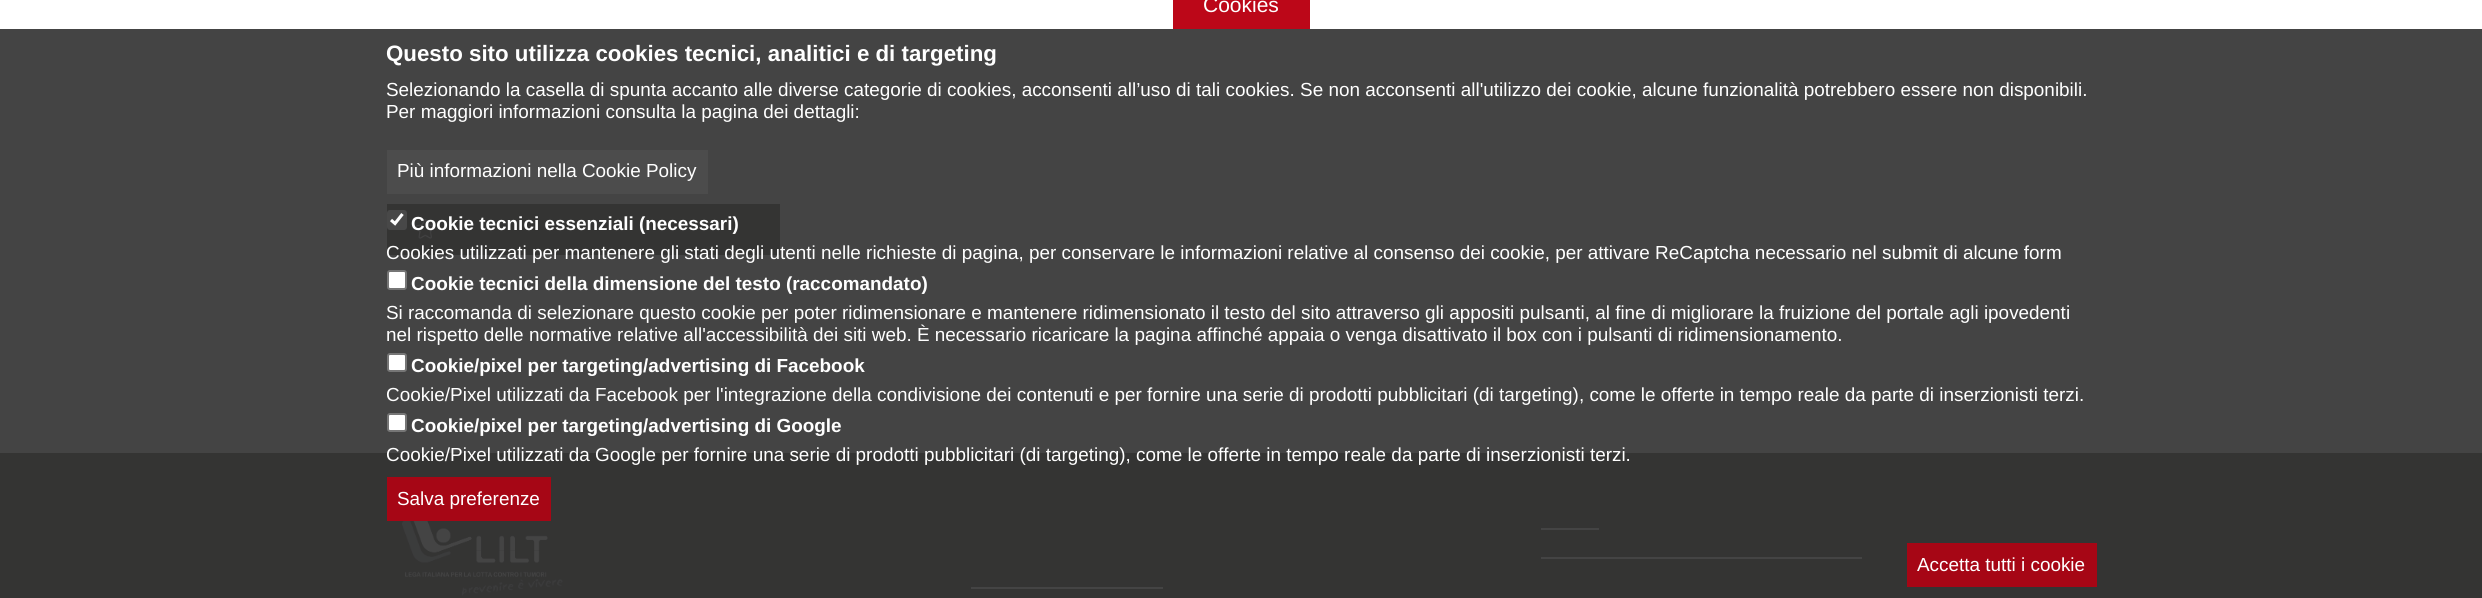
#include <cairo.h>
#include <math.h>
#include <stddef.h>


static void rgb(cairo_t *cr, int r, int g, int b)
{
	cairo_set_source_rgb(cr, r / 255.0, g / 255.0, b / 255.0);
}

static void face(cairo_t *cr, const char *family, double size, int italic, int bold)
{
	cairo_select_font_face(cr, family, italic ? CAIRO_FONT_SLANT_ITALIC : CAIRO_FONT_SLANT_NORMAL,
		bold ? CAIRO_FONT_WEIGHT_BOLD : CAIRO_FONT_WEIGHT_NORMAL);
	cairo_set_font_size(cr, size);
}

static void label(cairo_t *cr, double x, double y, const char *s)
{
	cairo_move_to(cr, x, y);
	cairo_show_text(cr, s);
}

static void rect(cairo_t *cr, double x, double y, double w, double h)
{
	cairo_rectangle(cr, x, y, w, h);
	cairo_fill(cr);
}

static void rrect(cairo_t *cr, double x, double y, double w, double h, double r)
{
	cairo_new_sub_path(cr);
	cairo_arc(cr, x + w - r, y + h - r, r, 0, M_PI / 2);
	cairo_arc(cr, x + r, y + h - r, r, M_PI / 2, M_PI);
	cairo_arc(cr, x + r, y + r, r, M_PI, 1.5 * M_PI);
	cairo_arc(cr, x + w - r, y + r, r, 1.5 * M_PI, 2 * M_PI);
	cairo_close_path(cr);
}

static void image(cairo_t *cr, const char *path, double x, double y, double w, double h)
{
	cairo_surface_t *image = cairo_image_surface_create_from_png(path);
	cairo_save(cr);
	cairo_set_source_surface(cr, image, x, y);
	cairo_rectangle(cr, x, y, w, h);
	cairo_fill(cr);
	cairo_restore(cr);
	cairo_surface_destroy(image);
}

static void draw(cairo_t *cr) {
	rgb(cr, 255, 255, 255);
	cairo_paint(cr);
	rgb(cr, 188, 7, 24);
	rect(cr, 1173, 0, 137, 29);
	face(cr, "Liberation Sans", 21, 0, 0);
	rgb(cr, 255, 255, 255);
	label(cr, 1203, 12, "Cookies");
	rgb(cr, 88, 87, 85);
	rect(cr, 387, 204, 393, 51);
	image(cr, "image0.png", 415, 219, 20, 20);
	rect(cr, 0, 453, 2482, 145);
	image(cr, "image1.png", 402, 521, 161, 75);
	rgb(cr, 255, 255, 255);
	rect(cr, 1541, 528, 58, 2);
	rect(cr, 1541, 557, 321, 2);
	rect(cr, 971, 587, 192, 2);
	cairo_set_source_rgba(cr, 0.188, 0.188, 0.188, 0.9);
	rect(cr, 0, 29, 2482, 569);
	face(cr, "Liberation Sans", 22.3, 0, 1);
	rgb(cr, 255, 255, 255);
	label(cr, 386, 61, "Questo sito utilizza cookies tecnici, analitici e di targeting");
	face(cr, "Liberation Sans", 18.9, 0, 0);
	label(cr, 386, 96, "Selezionando la casella di spunta accanto alle diverse categorie di cookies, acconsenti all’uso di tali cookies. Se non acconsenti all'utilizzo dei cookie, alcune funzionalità potrebbero essere non disponibili.");
	label(cr, 386, 118, "Per maggiori informazioni consulta la pagina dei dettagli:");
	rgb(cr, 76, 76, 76);
	rect(cr, 387, 150, 321, 44);
	rgb(cr, 255, 255, 255);
	label(cr, 397, 177, "Più informazioni nella Cookie Policy");
	rgb(cr, 72, 72, 72);
	rrect(cr, 387, 210, 20, 20, 3);
	cairo_fill(cr);
	cairo_new_path(cr);
	cairo_move_to(cr, 391, 220);
	cairo_line_to(cr, 395, 223.5);
	cairo_line_to(cr, 402.5, 214);
	rgb(cr, 255, 255, 255);
	cairo_set_line_width(cr, 3.1);
	cairo_stroke(cr);
	face(cr, "Liberation Sans", 18.9, 0, 1);
	label(cr, 411, 230, "Cookie tecnici essenziali (necessari)");
	face(cr, "Liberation Sans", 18.9, 0, 0);
	label(cr, 386, 259, "Cookies utilizzati per mantenere gli stati degli utenti nelle richieste di pagina, per conservare le informazioni relative al consenso dei cookie, per attivare ReCaptcha necessario nel submit di alcune form");
	rrect(cr, 388, 271, 18, 18, 2);
	cairo_fill_preserve(cr);
	rgb(cr, 118, 118, 118);
	cairo_set_line_width(cr, 2);
	cairo_stroke(cr);
	face(cr, "Liberation Sans", 18.9, 0, 1);
	rgb(cr, 255, 255, 255);
	label(cr, 411, 290, "Cookie tecnici della dimensione del testo (raccomandato)");
	face(cr, "Liberation Sans", 18.9, 0, 0);
	label(cr, 386, 319, "Si raccomanda di selezionare questo cookie per poter ridimensionare e mantenere ridimensionato il testo del sito attraverso gli appositi pulsanti, al fine di migliorare la fruizione del portale agli ipovedenti");
	label(cr, 386, 341, "nel rispetto delle normative relative all'accessibilità dei siti web. È necessario ricaricare la pagina affinché appaia o venga disattivato il box con i pulsanti di ridimensionamento.");
	rrect(cr, 388, 354, 18, 17, 2);
	cairo_fill_preserve(cr);
	rgb(cr, 118, 118, 118);
	cairo_stroke(cr);
	face(cr, "Liberation Sans", 18.9, 0, 1);
	rgb(cr, 255, 255, 255);
	label(cr, 411, 372, "Cookie/pixel per targeting/advertising di Facebook");
	face(cr, "Liberation Sans", 18.9, 0, 0);
	label(cr, 386, 401, "Cookie/Pixel utilizzati da Facebook per l'integrazione della condivisione dei contenuti e per fornire una serie di prodotti pubblicitari (di targeting), come le offerte in tempo reale da parte di inserzionisti terzi.");
	rrect(cr, 388, 414, 18, 17, 2);
	cairo_fill_preserve(cr);
	rgb(cr, 118, 118, 118);
	cairo_stroke(cr);
	face(cr, "Liberation Sans", 18.9, 0, 1);
	rgb(cr, 255, 255, 255);
	label(cr, 411, 432, "Cookie/pixel per targeting/advertising di Google");
	face(cr, "Liberation Sans", 18.9, 0, 0);
	label(cr, 386, 461, "Cookie/Pixel utilizzati da Google per fornire una serie di prodotti pubblicitari (di targeting), come le offerte in tempo reale da parte di inserzionisti terzi.");
	rgb(cr, 166, 6, 21);
	rect(cr, 387, 477, 164, 44);
	rgb(cr, 255, 255, 255);
	label(cr, 397, 505, "Salva preferenze");
	rgb(cr, 166, 6, 21);
	rect(cr, 1907, 543, 190, 44);
	rgb(cr, 255, 255, 255);
	label(cr, 1917, 571, "Accetta tutti i cookie");
}

int main(void) {
	cairo_surface_t *surface = cairo_image_surface_create(CAIRO_FORMAT_RGB24, 2482, 598);
	cairo_t *cr = cairo_create(surface);
	cairo_font_options_t *options = cairo_font_options_create();
	cairo_font_options_set_hint_metrics(options, CAIRO_HINT_METRICS_OFF);
	cairo_font_options_set_hint_style(options, CAIRO_HINT_STYLE_NONE);
	cairo_set_font_options(cr, options);
	cairo_set_miter_limit(cr, 4);
	draw(cr);
	cairo_surface_write_to_png(surface, "render.png");
	cairo_font_options_destroy(options);
	cairo_destroy(cr);
	cairo_surface_destroy(surface);
	return 0;
}
